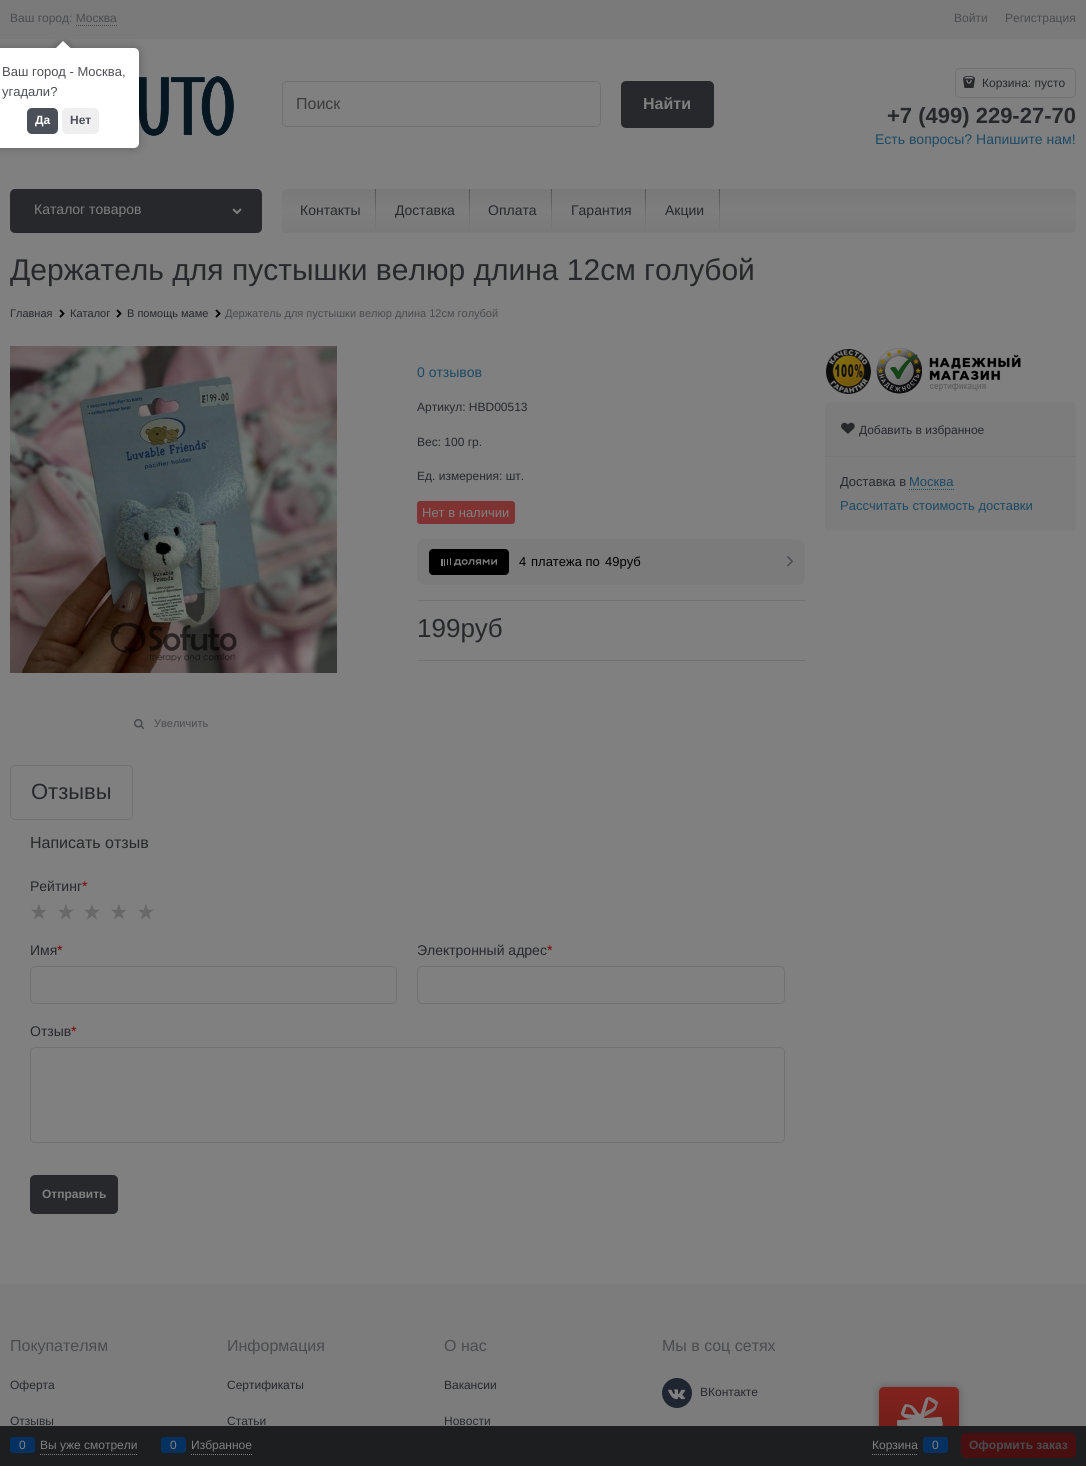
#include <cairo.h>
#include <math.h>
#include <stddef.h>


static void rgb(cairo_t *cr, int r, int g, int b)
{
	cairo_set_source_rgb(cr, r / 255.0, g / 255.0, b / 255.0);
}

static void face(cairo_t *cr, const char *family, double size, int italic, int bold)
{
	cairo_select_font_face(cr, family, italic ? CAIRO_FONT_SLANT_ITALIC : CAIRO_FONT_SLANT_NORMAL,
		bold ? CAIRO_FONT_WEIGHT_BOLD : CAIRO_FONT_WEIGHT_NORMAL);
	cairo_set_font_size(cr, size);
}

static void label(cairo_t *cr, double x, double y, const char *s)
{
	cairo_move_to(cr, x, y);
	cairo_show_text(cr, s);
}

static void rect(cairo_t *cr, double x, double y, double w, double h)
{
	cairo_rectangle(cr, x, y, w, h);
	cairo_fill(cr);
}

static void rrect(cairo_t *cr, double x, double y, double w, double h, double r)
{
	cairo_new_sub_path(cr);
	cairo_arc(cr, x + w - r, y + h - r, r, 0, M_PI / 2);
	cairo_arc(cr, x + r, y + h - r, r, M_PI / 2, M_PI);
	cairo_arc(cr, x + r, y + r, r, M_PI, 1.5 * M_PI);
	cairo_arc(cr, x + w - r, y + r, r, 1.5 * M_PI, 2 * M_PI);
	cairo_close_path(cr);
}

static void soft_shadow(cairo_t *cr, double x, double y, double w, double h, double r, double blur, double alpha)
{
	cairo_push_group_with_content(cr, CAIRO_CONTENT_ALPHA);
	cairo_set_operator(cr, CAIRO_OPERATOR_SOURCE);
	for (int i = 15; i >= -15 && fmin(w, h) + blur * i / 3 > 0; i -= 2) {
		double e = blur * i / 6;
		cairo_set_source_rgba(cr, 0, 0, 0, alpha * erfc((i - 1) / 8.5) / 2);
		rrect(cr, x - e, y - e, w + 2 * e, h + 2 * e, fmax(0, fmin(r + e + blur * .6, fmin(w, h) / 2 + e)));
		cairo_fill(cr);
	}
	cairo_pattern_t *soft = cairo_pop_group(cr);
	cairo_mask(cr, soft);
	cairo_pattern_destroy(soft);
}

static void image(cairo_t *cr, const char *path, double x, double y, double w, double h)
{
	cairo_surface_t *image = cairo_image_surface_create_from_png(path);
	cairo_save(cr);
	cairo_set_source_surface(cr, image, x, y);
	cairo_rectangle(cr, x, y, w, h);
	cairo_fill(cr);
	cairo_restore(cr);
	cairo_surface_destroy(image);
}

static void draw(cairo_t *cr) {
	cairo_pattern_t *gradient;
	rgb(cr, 128, 128, 128);
	cairo_paint(cr);
	rgb(cr, 122, 122, 122);
	rect(cr, 0, 0, 1086, 39);
	face(cr, "Liberation Sans", 12, 0, 0);
	rgb(cr, 74, 75, 78);
	label(cr, 10, 22, "Ваш город: Москва");
	cairo_new_path(cr);
	cairo_move_to(cr, 76, 25.5);
	cairo_line_to(cr, 117, 25.5);
	cairo_set_line_width(cr, 1);
	cairo_set_dash(cr, (double[]){1, 1}, 2, 0);
	cairo_stroke(cr);
	label(cr, 954, 22, "Войти");
	label(cr, 1005, 22, "Регистрация");
	image(cr, "image0.png", 139, 76, 95, 60);
	rrect(cr, 282.5, 81.5, 318, 45, 4.5);
	rgb(cr, 113, 114, 114);
	cairo_set_dash(cr, NULL, 0, 0);
	cairo_stroke(cr);
	face(cr, "Liberation Sans", 16, 0, 0);
	rgb(cr, 59, 59, 59);
	label(cr, 296, 109, "Поиск");
	rgb(cr, 38, 40, 44);
	rrect(cr, 621, 81, 93, 47, 5);
	cairo_fill(cr);
	face(cr, "Liberation Sans", 16, 0, 1);
	rgb(cr, 128, 128, 128);
	label(cr, 643, 109, "Найти");
	rrect(cr, 955.5, 68.5, 120, 29, 4.5);
	rgb(cr, 113, 114, 114);
	cairo_stroke(cr);
	image(cr, "image1.png", 963, 76, 12, 12);
	face(cr, "Liberation Sans", 12, 0, 0);
	rgb(cr, 38, 40, 44);
	label(cr, 982, 87, "Корзина: пусто");
	face(cr, "Liberation Sans", 22, 0, 1);
	label(cr, 887, 123, "+7 (499) 229-27-70");
	face(cr, "Liberation Sans", 14, 0, 0);
	rgb(cr, 28, 73, 99);
	label(cr, 875, 144, "Есть вопросы? Напишите нам!");
	rgb(cr, 38, 40, 44);
	rrect(cr, 10, 189, 252, 44, 5);
	cairo_fill(cr);
	rgb(cr, 128, 128, 128);
	label(cr, 34, 214, "Каталог товаров");
	image(cr, "image2.png", 232, 208, 10, 7);
	gradient = cairo_pattern_create_linear(679, 189, 679, 233);
	cairo_pattern_add_color_stop_rgba(gradient, 0, 0.471, 0.471, 0.471, 1);
	cairo_pattern_add_color_stop_rgba(gradient, 0.5, 0.494, 0.494, 0.494, 1);
	cairo_pattern_add_color_stop_rgba(gradient, 1, 0.475, 0.475, 0.475, 1);
	cairo_set_source(cr, gradient);
	cairo_pattern_destroy(gradient);
	rrect(cr, 282, 189, 794, 44, 5);
	cairo_fill(cr);
	rgb(cr, 38, 40, 44);
	label(cr, 300, 215, "Контакты");
	gradient = cairo_pattern_create_linear(376, 189, 376, 233);
	cairo_pattern_add_color_stop_rgba(gradient, 0, 0.114, 0.114, 0.114, 0.39);
	cairo_pattern_add_color_stop_rgba(gradient, 0.17, 0.114, 0.114, 0.114, 0.33);
	cairo_pattern_add_color_stop_rgba(gradient, 0.61, 0.114, 0.114, 0.114, 0.12);
	cairo_pattern_add_color_stop_rgba(gradient, 0.96, 0.114, 0.114, 0.114, 0.01);
	cairo_pattern_add_color_stop_rgba(gradient, 0.98, 0.502, 0.502, 0.502, 0.01);
	cairo_pattern_add_color_stop_rgba(gradient, 1, 0.502, 0.502, 0.502, 0);
	cairo_set_source(cr, gradient);
	cairo_pattern_destroy(gradient);
	rect(cr, 375, 189, 1, 44);
	rgb(cr, 38, 40, 44);
	label(cr, 395, 215, "Доставка");
	gradient = cairo_pattern_create_linear(470, 189, 470, 233);
	cairo_pattern_add_color_stop_rgba(gradient, 0, 0.114, 0.114, 0.114, 0.39);
	cairo_pattern_add_color_stop_rgba(gradient, 0.17, 0.114, 0.114, 0.114, 0.33);
	cairo_pattern_add_color_stop_rgba(gradient, 0.61, 0.114, 0.114, 0.114, 0.12);
	cairo_pattern_add_color_stop_rgba(gradient, 0.96, 0.114, 0.114, 0.114, 0.01);
	cairo_pattern_add_color_stop_rgba(gradient, 0.98, 0.502, 0.502, 0.502, 0.01);
	cairo_pattern_add_color_stop_rgba(gradient, 1, 0.502, 0.502, 0.502, 0);
	cairo_set_source(cr, gradient);
	cairo_pattern_destroy(gradient);
	rect(cr, 469, 189, 1, 44);
	rgb(cr, 38, 40, 44);
	label(cr, 488, 215, "Оплата");
	gradient = cairo_pattern_create_linear(552, 189, 552, 233);
	cairo_pattern_add_color_stop_rgba(gradient, 0, 0.114, 0.114, 0.114, 0.39);
	cairo_pattern_add_color_stop_rgba(gradient, 0.17, 0.114, 0.114, 0.114, 0.33);
	cairo_pattern_add_color_stop_rgba(gradient, 0.61, 0.114, 0.114, 0.114, 0.12);
	cairo_pattern_add_color_stop_rgba(gradient, 0.96, 0.114, 0.114, 0.114, 0.01);
	cairo_pattern_add_color_stop_rgba(gradient, 0.98, 0.502, 0.502, 0.502, 0.01);
	cairo_pattern_add_color_stop_rgba(gradient, 1, 0.502, 0.502, 0.502, 0);
	cairo_set_source(cr, gradient);
	cairo_pattern_destroy(gradient);
	rect(cr, 551, 189, 1, 44);
	rgb(cr, 38, 40, 44);
	label(cr, 571, 215, "Гарантия");
	gradient = cairo_pattern_create_linear(646, 189, 646, 233);
	cairo_pattern_add_color_stop_rgba(gradient, 0, 0.114, 0.114, 0.114, 0.39);
	cairo_pattern_add_color_stop_rgba(gradient, 0.17, 0.114, 0.114, 0.114, 0.33);
	cairo_pattern_add_color_stop_rgba(gradient, 0.61, 0.114, 0.114, 0.114, 0.12);
	cairo_pattern_add_color_stop_rgba(gradient, 0.96, 0.114, 0.114, 0.114, 0.01);
	cairo_pattern_add_color_stop_rgba(gradient, 0.98, 0.502, 0.502, 0.502, 0.01);
	cairo_pattern_add_color_stop_rgba(gradient, 1, 0.502, 0.502, 0.502, 0);
	cairo_set_source(cr, gradient);
	cairo_pattern_destroy(gradient);
	rect(cr, 645, 189, 1, 44);
	rgb(cr, 38, 40, 44);
	label(cr, 665, 215, "Акции");
	gradient = cairo_pattern_create_linear(720, 189, 720, 233);
	cairo_pattern_add_color_stop_rgba(gradient, 0, 0.114, 0.114, 0.114, 0.39);
	cairo_pattern_add_color_stop_rgba(gradient, 0.17, 0.114, 0.114, 0.114, 0.33);
	cairo_pattern_add_color_stop_rgba(gradient, 0.61, 0.114, 0.114, 0.114, 0.12);
	cairo_pattern_add_color_stop_rgba(gradient, 0.96, 0.114, 0.114, 0.114, 0.01);
	cairo_pattern_add_color_stop_rgba(gradient, 0.98, 0.502, 0.502, 0.502, 0.01);
	cairo_pattern_add_color_stop_rgba(gradient, 1, 0.502, 0.502, 0.502, 0);
	cairo_set_source(cr, gradient);
	cairo_pattern_destroy(gradient);
	rect(cr, 719, 189, 1, 44);
	face(cr, "Liberation Sans", 30, 0, 0);
	rgb(cr, 38, 40, 44);
	label(cr, 10, 280, "Держатель для пустышки велюр длина 12см голубой");
	face(cr, "Liberation Sans", 11, 0, 0);
	label(cr, 10, 317, "Главная");
	image(cr, "image3.png", 59, 309, 6, 9);
	label(cr, 70, 317, "Каталог");
	image(cr, "image3.png", 116, 309, 6, 9);
	label(cr, 127, 317, "В помощь маме");
	image(cr, "image3.png", 215, 309, 6, 9);
	rgb(cr, 74, 75, 78);
	label(cr, 225, 317, "Держатель для пустышки велюр длина 12см голубой");
	face(cr, "Liberation Sans", 14, 0, 0);
	rgb(cr, 28, 73, 99);
	label(cr, 417, 377, "0 отзывов");
	face(cr, "Liberation Sans", 12, 0, 0);
	rgb(cr, 38, 40, 44);
	label(cr, 417, 411, "Артикул: HBD00513");
	label(cr, 417, 446, "Вес: 100 гр.");
	label(cr, 417, 480, "Ед. измерения: шт.");
	rgb(cr, 126, 50, 50);
	rrect(cr, 417, 501, 98, 23, 3);
	cairo_fill(cr);
	face(cr, "Liberation Sans", 13, 0, 0);
	rgb(cr, 128, 128, 128);
	label(cr, 422, 517, "Нет в наличии");
	rgb(cr, 123, 123, 123);
	rrect(cr, 417, 539, 388, 46, 8);
	cairo_fill(cr);
	rgb(cr, 0, 0, 0);
	rrect(cr, 429, 549, 80, 26, 4);
	cairo_fill(cr);
	image(cr, "image4.png", 441, 558, 56, 8);
	label(cr, 519, 566, "4");
	label(cr, 531, 566, "платежа по");
	label(cr, 605, 566, "49руб");
	image(cr, "image5.png", 787, 556, 6, 11);
	rgb(cr, 113, 114, 114);
	rect(cr, 417, 600, 388, 1);
	rect(cr, 417, 660, 388, 1);
	face(cr, "Liberation Sans", 26, 0, 0);
	rgb(cr, 38, 40, 44);
	label(cr, 417, 637, "199руб");
	image(cr, "image6.png", 10, 346, 327, 327);
	image(cr, "image7.png", 134, 718, 11, 12);
	face(cr, "Liberation Sans", 11, 0, 0);
	rgb(cr, 74, 75, 78);
	label(cr, 154, 727, "Увеличить");
	rrect(cr, 10.5, 765.5, 122, 54, 4.5);
	rgb(cr, 113, 114, 114);
	cairo_stroke(cr);
	face(cr, "Liberation Sans", 22, 0, 0);
	rgb(cr, 38, 40, 44);
	label(cr, 31, 799, "Отзывы");
	face(cr, "Liberation Sans", 16, 0, 0);
	label(cr, 30, 848, "Написать отзыв");
	face(cr, "Liberation Sans", 14, 0, 0);
	label(cr, 30, 891, "Рейтинг");
	rgb(cr, 128, 0, 0);
	label(cr, 82, 891, "*");
	image(cr, "image8.png", 31, 904, 16, 16);
	image(cr, "image8.png", 58, 904, 16, 16);
	image(cr, "image8.png", 84, 904, 16, 16);
	image(cr, "image8.png", 111, 904, 16, 16);
	image(cr, "image8.png", 138, 904, 16, 16);
	rgb(cr, 38, 40, 44);
	label(cr, 30, 955, "Имя");
	rgb(cr, 128, 0, 0);
	label(cr, 57, 955, "*");
	rrect(cr, 30.5, 966.5, 366, 37, 4.5);
	rgb(cr, 113, 114, 114);
	cairo_stroke(cr);
	rgb(cr, 38, 40, 44);
	label(cr, 417, 955, "Электронный адрес");
	rgb(cr, 128, 0, 0);
	label(cr, 547, 955, "*");
	rrect(cr, 417.5, 966.5, 367, 37, 4.5);
	rgb(cr, 113, 114, 114);
	cairo_stroke(cr);
	rgb(cr, 38, 40, 44);
	label(cr, 30, 1036, "Отзыв");
	rgb(cr, 128, 0, 0);
	label(cr, 71, 1036, "*");
	rrect(cr, 30.5, 1047.5, 754, 95, 4.5);
	rgb(cr, 113, 114, 114);
	cairo_stroke(cr);
	rgb(cr, 38, 40, 44);
	rrect(cr, 30, 1175, 88, 39, 5);
	cairo_fill(cr);
	face(cr, "Liberation Sans", 12, 0, 1);
	rgb(cr, 128, 128, 128);
	label(cr, 42, 1198, "Отправить");
	image(cr, "image9.png", 826, 348, 195, 46);
	rgb(cr, 124, 124, 124);
	rrect(cr, 825, 402, 251, 129, 5);
	cairo_fill(cr);
	rgb(cr, 117, 117, 117);
	rect(cr, 825, 456, 251, 1);
	image(cr, "image10.png", 841, 422, 14, 12);
	face(cr, "Liberation Sans", 12, 0, 0);
	rgb(cr, 38, 40, 44);
	label(cr, 859, 434, "Добавить в избранное");
	face(cr, "Liberation Sans", 13, 0, 0);
	label(cr, 840, 486, "Доставка в");
	rgb(cr, 28, 73, 99);
	label(cr, 909, 486, "Москва");
	cairo_new_path(cr);
	cairo_move_to(cr, 909, 489.5);
	cairo_line_to(cr, 954, 489.5);
	cairo_set_dash(cr, (double[]){1, 1}, 2, 0);
	cairo_stroke(cr);
	label(cr, 840, 510, "Рассчитать стоимость доставки");
	rgb(cr, 124, 124, 124);
	rect(cr, 0, 1284, 1086, 142);
	face(cr, "Liberation Sans", 16, 0, 0);
	rgb(cr, 74, 75, 78);
	label(cr, 10, 1351, "Покупателям");
	face(cr, "Liberation Sans", 12, 0, 0);
	rgb(cr, 38, 40, 44);
	label(cr, 10, 1389, "Оферта");
	label(cr, 10, 1425, "Отзывы");
	face(cr, "Liberation Sans", 16, 0, 0);
	rgb(cr, 74, 75, 78);
	label(cr, 227, 1351, "Информация");
	face(cr, "Liberation Sans", 12, 0, 0);
	rgb(cr, 38, 40, 44);
	label(cr, 227, 1389, "Сертификаты");
	label(cr, 227, 1425, "Статьи");
	face(cr, "Liberation Sans", 16, 0, 0);
	rgb(cr, 74, 75, 78);
	label(cr, 444, 1351, "О нас");
	face(cr, "Liberation Sans", 12, 0, 0);
	rgb(cr, 38, 40, 44);
	label(cr, 444, 1389, "Вакансии");
	label(cr, 444, 1425, "Новости");
	face(cr, "Liberation Sans", 16, 0, 0);
	rgb(cr, 74, 75, 78);
	label(cr, 662, 1351, "Мы в соц сетях");
	rgb(cr, 30, 37, 48);
	cairo_new_path(cr);
	cairo_arc(cr, 677, 1393, 15, 0, 2 * M_PI);
	cairo_fill(cr);
	image(cr, "image11.png", 668, 1389, 18, 11);
	face(cr, "Liberation Sans", 12, 0, 0);
	rgb(cr, 38, 40, 44);
	label(cr, 700, 1396, "ВКонтакте");
	rgb(cr, 0, 0, 0);
	soft_shadow(cr, 879, 1387, 80, 50, 5, 4.5, 0.25);
	gradient = cairo_pattern_create_linear(919, 1387, 919, 1437);
	cairo_pattern_add_color_stop_rgba(gradient, 0, 0.502, 0.137, 0.118, 1);
	cairo_pattern_add_color_stop_rgba(gradient, 0.12, 0.498, 0.133, 0.118, 1);
	cairo_pattern_add_color_stop_rgba(gradient, 0.67, 0.455, 0.122, 0.102, 1);
	cairo_pattern_add_color_stop_rgba(gradient, 0.98, 0.439, 0.114, 0.098, 1);
	cairo_pattern_add_color_stop_rgba(gradient, 1, 0.443, 0.145, 0.129, 1);
	cairo_set_source(cr, gradient);
	cairo_pattern_destroy(gradient);
	rrect(cr, 879, 1387, 80, 50, 5);
	cairo_fill(cr);
	image(cr, "image12.png", 897, 1396, 46, 30);
	rgb(cr, 28, 30, 32);
	rect(cr, 0, 1426, 1086, 40);
	cairo_new_path(cr);
	cairo_move_to(cr, 40, 1454.5);
	cairo_line_to(cr, 137, 1454.5);
	rgb(cr, 128, 128, 128);
	cairo_stroke(cr);
	rgb(cr, 3, 49, 97);
	rrect(cr, 10, 1437, 25, 16, 3);
	cairo_fill(cr);
	rgb(cr, 128, 128, 128);
	label(cr, 19, 1449, "0");
	label(cr, 40, 1449, "Вы уже смотрели");
	cairo_new_path(cr);
	cairo_move_to(cr, 191, 1454.5);
	cairo_line_to(cr, 252, 1454.5);
	cairo_stroke(cr);
	rgb(cr, 3, 49, 97);
	rrect(cr, 161, 1437, 25, 16, 3);
	cairo_fill(cr);
	rgb(cr, 128, 128, 128);
	label(cr, 170, 1449, "0");
	label(cr, 191, 1449, "Избранное");
	cairo_new_path(cr);
	cairo_move_to(cr, 872, 1454.5);
	cairo_line_to(cr, 918, 1454.5);
	cairo_stroke(cr);
	label(cr, 872, 1449, "Корзина");
	rgb(cr, 3, 49, 97);
	rrect(cr, 923, 1437, 25, 16, 3);
	cairo_fill(cr);
	rgb(cr, 128, 128, 128);
	label(cr, 932, 1449, "0");
	rgb(cr, 71, 15, 16);
	rrect(cr, 961, 1433, 115, 25, 5);
	cairo_fill(cr);
	face(cr, "Liberation Sans", 12, 0, 1);
	rgb(cr, 74, 75, 78);
	label(cr, 969, 1449, "Оформить заказ");
	rgb(cr, 0, 0, 0);
	soft_shadow(cr, -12, 48, 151, 100, 5, 4.5, 0.25);
	rgb(cr, 255, 255, 255);
	rrect(cr, -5, 48, 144, 100, 5);
	cairo_fill(cr);
	cairo_save(cr);
	cairo_rectangle(cr, 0, 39, 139, 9);
	cairo_clip(cr);
	rgb(cr, 0, 0, 0);
	soft_shadow(cr, 58, 43, 10, 10, 0, 4.5, 0.25);
	cairo_restore(cr);
	cairo_save(cr);
	cairo_rectangle(cr, 0, 39, 139, 9);
	cairo_clip(cr);
	cairo_new_path(cr);
	cairo_move_to(cr, 63, 41);
	cairo_line_to(cr, 70.5, 48);
	cairo_line_to(cr, 63, 55);
	cairo_line_to(cr, 56, 48);
	cairo_close_path(cr);
	cairo_fill(cr);
	cairo_restore(cr);
	face(cr, "Liberation Sans", 13, 0, 0);
	rgb(cr, 75, 79, 88);
	label(cr, 2, 76, "Ваш город - Москва,");
	label(cr, 2, 96, "угадали?");
	rrect(cr, 27, 108, 31, 26, 5);
	cairo_fill(cr);
	face(cr, "Liberation Sans", 12, 0, 1);
	rgb(cr, 255, 255, 255);
	label(cr, 35, 124, "Да");
	rgb(cr, 239, 239, 239);
	rrect(cr, 62, 108, 37, 26, 5);
	cairo_fill(cr);
	rgb(cr, 75, 79, 88);
	label(cr, 70, 124, "Нет");
}

int main(void) {
	cairo_surface_t *surface = cairo_image_surface_create(CAIRO_FORMAT_RGB24, 1086, 1466);
	cairo_t *cr = cairo_create(surface);
	cairo_font_options_t *options = cairo_font_options_create();
	cairo_font_options_set_hint_metrics(options, CAIRO_HINT_METRICS_OFF);
	cairo_font_options_set_hint_style(options, CAIRO_HINT_STYLE_NONE);
	cairo_set_font_options(cr, options);
	cairo_set_miter_limit(cr, 4);
	draw(cr);
	cairo_surface_write_to_png(surface, "render.png");
	cairo_font_options_destroy(options);
	cairo_destroy(cr);
	cairo_surface_destroy(surface);
	return 0;
}
